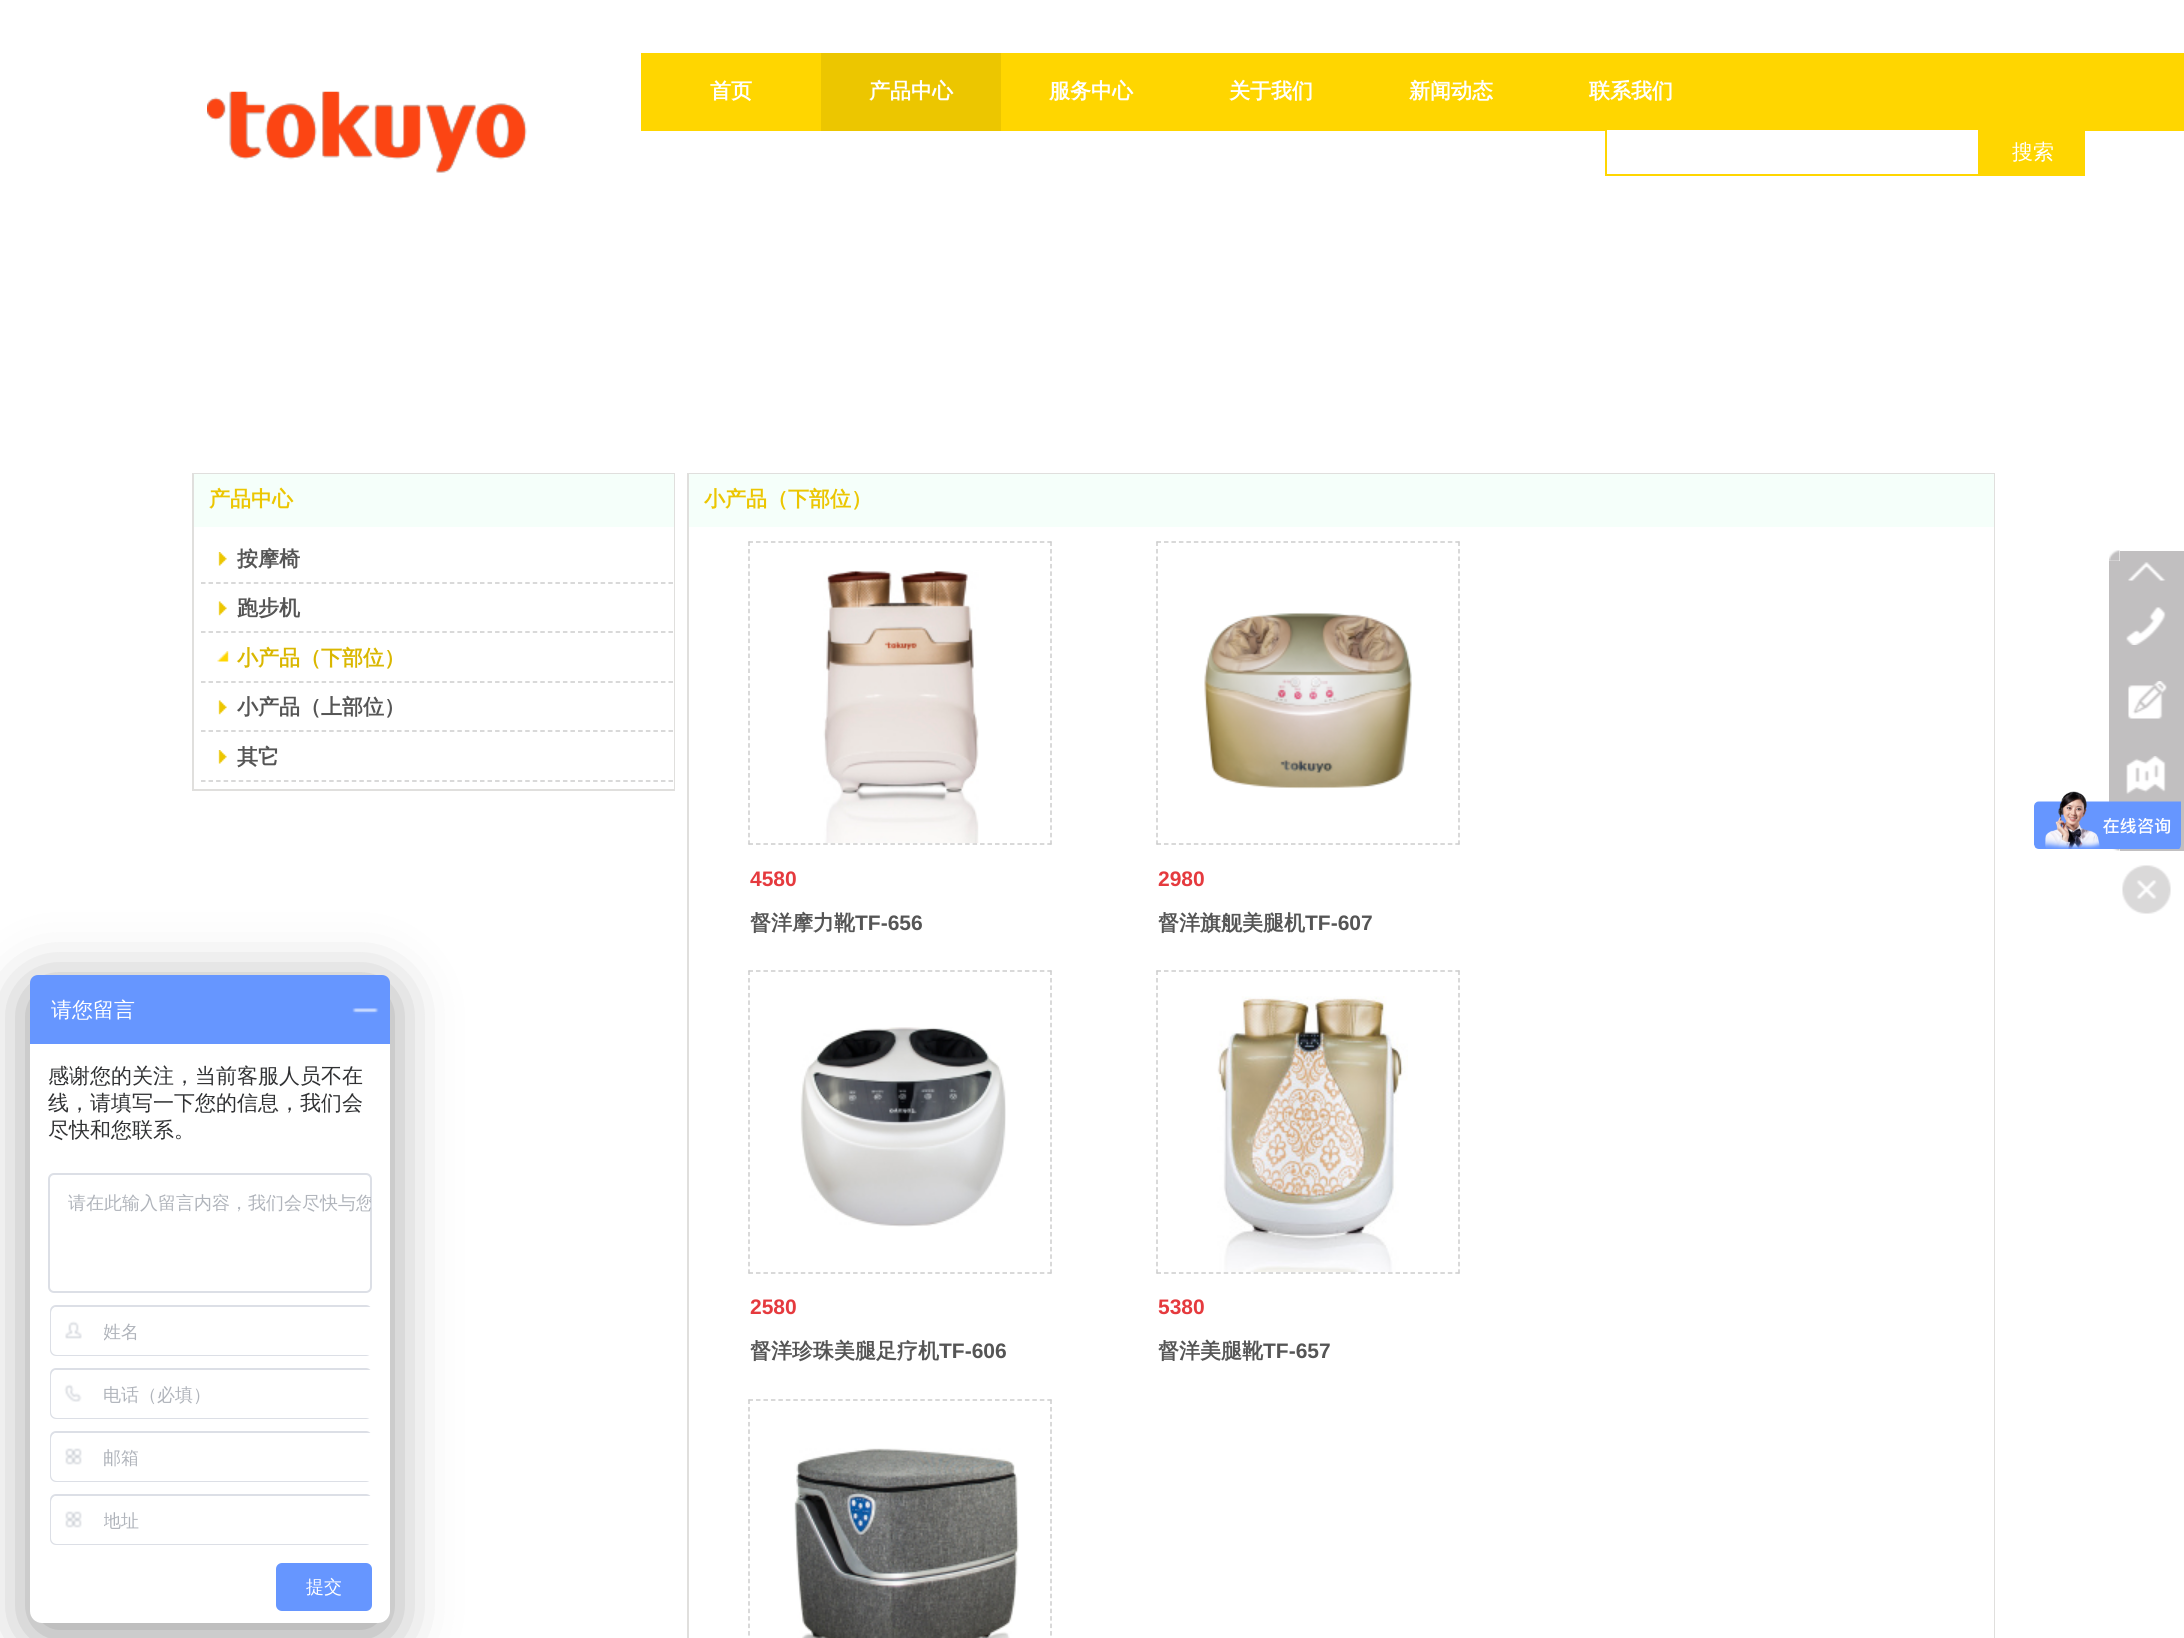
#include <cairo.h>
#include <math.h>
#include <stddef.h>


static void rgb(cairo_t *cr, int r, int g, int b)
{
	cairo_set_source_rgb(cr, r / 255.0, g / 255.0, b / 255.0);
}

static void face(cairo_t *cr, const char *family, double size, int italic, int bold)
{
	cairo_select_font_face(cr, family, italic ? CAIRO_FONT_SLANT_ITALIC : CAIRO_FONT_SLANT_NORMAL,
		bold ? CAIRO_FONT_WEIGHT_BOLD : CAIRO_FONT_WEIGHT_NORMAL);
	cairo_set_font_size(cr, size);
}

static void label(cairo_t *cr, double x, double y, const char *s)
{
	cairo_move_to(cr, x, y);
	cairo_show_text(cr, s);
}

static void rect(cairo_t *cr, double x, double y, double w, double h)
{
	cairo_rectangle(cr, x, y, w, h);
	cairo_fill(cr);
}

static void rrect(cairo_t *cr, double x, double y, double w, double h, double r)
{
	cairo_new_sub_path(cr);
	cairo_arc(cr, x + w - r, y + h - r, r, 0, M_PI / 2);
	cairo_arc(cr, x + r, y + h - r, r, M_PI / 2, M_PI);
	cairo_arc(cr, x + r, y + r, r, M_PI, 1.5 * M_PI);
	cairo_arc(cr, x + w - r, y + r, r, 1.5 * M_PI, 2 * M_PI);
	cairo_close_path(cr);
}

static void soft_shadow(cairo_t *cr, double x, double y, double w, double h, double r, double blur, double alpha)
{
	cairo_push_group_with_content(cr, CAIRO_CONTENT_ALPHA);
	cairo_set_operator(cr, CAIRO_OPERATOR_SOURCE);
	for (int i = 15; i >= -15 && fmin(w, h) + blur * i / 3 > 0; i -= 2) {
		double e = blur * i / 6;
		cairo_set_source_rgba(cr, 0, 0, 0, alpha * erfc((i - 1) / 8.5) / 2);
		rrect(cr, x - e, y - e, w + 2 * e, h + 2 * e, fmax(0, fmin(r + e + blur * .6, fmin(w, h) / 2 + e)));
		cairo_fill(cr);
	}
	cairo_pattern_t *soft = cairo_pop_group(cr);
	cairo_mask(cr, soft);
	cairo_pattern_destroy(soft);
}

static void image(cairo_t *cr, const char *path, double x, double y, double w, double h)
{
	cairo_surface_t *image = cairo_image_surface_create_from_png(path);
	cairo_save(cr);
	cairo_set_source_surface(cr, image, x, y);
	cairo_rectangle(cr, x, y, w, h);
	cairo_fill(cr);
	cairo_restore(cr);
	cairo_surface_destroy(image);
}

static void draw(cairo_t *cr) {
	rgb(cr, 255, 255, 255);
	cairo_paint(cr);
	image(cr, "image0.png", 207, 91, 320, 82);
	rgb(cr, 255, 214, 0);
	rect(cr, 641, 53, 1543, 78);
	face(cr, "WenQuanYi Zen Hei", 21, 0, 1);
	rgb(cr, 255, 255, 255);
	label(cr, 710, 98, "首页");
	rgb(cr, 236, 198, 0);
	rect(cr, 821, 53, 180, 78);
	rgb(cr, 255, 255, 255);
	label(cr, 869, 98, "产品中心");
	label(cr, 1049, 98, "服务中心");
	label(cr, 1229, 98, "关于我们");
	label(cr, 1409, 98, "新闻动态");
	label(cr, 1589, 98, "联系我们");
	rect(cr, 1607, 130, 371, 1);
	cairo_rectangle(cr, 1606, 129, 373, 46);
	rgb(cr, 255, 214, 0);
	cairo_stroke(cr);
	rect(cr, 1980, 131, 105, 45);
	face(cr, "WenQuanYi Zen Hei Medium", 21, 0, 0);
	rgb(cr, 255, 255, 255);
	label(cr, 2012, 159, "搜索");
	cairo_rectangle(cr, 193, 474, 481, 316);
	rgb(cr, 224, 223, 221);
	cairo_stroke(cr);
	rgb(cr, 245, 255, 250);
	rect(cr, 194, 474, 480, 53);
	face(cr, "WenQuanYi Zen Hei", 21, 0, 1);
	rgb(cr, 236, 198, 1);
	label(cr, 209, 506, "产品中心");
	rgb(cr, 255, 255, 255);
	rect(cr, 673, 527, 1, 262);
	cairo_save(cr);
	cairo_rectangle(cr, 201, 534, 473, 50);
	cairo_clip(cr);
	cairo_new_path(cr);
	cairo_move_to(cr, 201, 583);
	cairo_line_to(cr, 681, 583);
	rgb(cr, 204, 204, 204);
	cairo_set_line_width(cr, 1.5);
	cairo_set_dash(cr, (double[]){4.5, 3.04}, 2, 0);
	cairo_stroke(cr);
	cairo_restore(cr);
	image(cr, "image1.png", 218, 552, 9, 14);
	rgb(cr, 85, 85, 85);
	label(cr, 237, 566, "按摩椅");
	cairo_save(cr);
	cairo_rectangle(cr, 201, 584, 473, 49);
	cairo_clip(cr);
	cairo_new_path(cr);
	cairo_move_to(cr, 201, 632);
	cairo_line_to(cr, 681, 632);
	rgb(cr, 204, 204, 204);
	cairo_set_line_width(cr, 1.5);
	cairo_set_dash(cr, (double[]){4.5, 3.04}, 2, 0);
	cairo_stroke(cr);
	cairo_restore(cr);
	image(cr, "image2.png", 218, 601, 9, 15);
	label(cr, 237, 615, "跑步机");
	cairo_save(cr);
	cairo_rectangle(cr, 201, 633, 473, 50);
	cairo_clip(cr);
	cairo_new_path(cr);
	cairo_move_to(cr, 201, 682);
	cairo_line_to(cr, 681, 682);
	rgb(cr, 204, 204, 204);
	cairo_set_line_width(cr, 1.5);
	cairo_set_dash(cr, (double[]){4.5, 3.04}, 2, 0);
	cairo_stroke(cr);
	cairo_restore(cr);
	image(cr, "image3.png", 217, 651, 12, 11);
	rgb(cr, 218, 183, 0);
	label(cr, 237, 665, "小产品（下部位）");
	cairo_save(cr);
	cairo_rectangle(cr, 201, 683, 473, 49);
	cairo_clip(cr);
	cairo_new_path(cr);
	cairo_move_to(cr, 201, 731);
	cairo_line_to(cr, 681, 731);
	rgb(cr, 204, 204, 204);
	cairo_set_line_width(cr, 1.5);
	cairo_set_dash(cr, (double[]){4.5, 3.04}, 2, 0);
	cairo_stroke(cr);
	cairo_restore(cr);
	image(cr, "image2.png", 218, 700, 9, 15);
	rgb(cr, 85, 85, 85);
	label(cr, 237, 714, "小产品（上部位）");
	cairo_save(cr);
	cairo_rectangle(cr, 201, 732, 473, 50);
	cairo_clip(cr);
	cairo_new_path(cr);
	cairo_move_to(cr, 201, 781);
	cairo_line_to(cr, 681, 781);
	rgb(cr, 204, 204, 204);
	cairo_set_line_width(cr, 1.5);
	cairo_set_dash(cr, (double[]){4.5, 3.04}, 2, 0);
	cairo_stroke(cr);
	cairo_restore(cr);
	image(cr, "image1.png", 218, 750, 9, 14);
	label(cr, 237, 764, "其它");
	cairo_rectangle(cr, 688, 474, 1306, 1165);
	rgb(cr, 224, 223, 221);
	cairo_stroke(cr);
	rgb(cr, 245, 255, 250);
	rect(cr, 689, 474, 1305, 53);
	rgb(cr, 236, 198, 1);
	label(cr, 704, 506, "小产品（下部位）");
	rgb(cr, 255, 255, 255);
	rect(cr, 1993, 527, 1, 1111);
	cairo_new_path(cr);
	cairo_move_to(cr, 748.5, 542);
	cairo_line_to(cr, 1051.5, 542);
	rgb(cr, 204, 204, 204);
	cairo_set_line_width(cr, 1.5);
	cairo_set_dash(cr, (double[]){4.5, 2.97}, 2, 0);
	cairo_stroke(cr);
	cairo_new_path(cr);
	cairo_move_to(cr, 1051, 541.5);
	cairo_line_to(cr, 1051, 844.5);
	cairo_stroke(cr);
	cairo_new_path(cr);
	cairo_move_to(cr, 748.5, 844);
	cairo_line_to(cr, 1051.5, 844);
	cairo_stroke(cr);
	cairo_new_path(cr);
	cairo_move_to(cr, 749, 541.5);
	cairo_line_to(cr, 749, 844.5);
	cairo_stroke(cr);
	image(cr, "image4.png", 823, 570, 156, 273);
	face(cr, "Liberation Sans", 21, 0, 1);
	rgb(cr, 229, 58, 62);
	label(cr, 750, 886, "4580");
	face(cr, "WenQuanYi Zen Hei", 21, 0, 1);
	rgb(cr, 85, 85, 85);
	label(cr, 750, 930, "督洋摩力靴");
	face(cr, "Liberation Sans", 21, 0, 1);
	label(cr, 855, 930, "TF-656");
	cairo_new_path(cr);
	cairo_move_to(cr, 1156.5, 542);
	cairo_line_to(cr, 1459.5, 542);
	rgb(cr, 204, 204, 204);
	cairo_stroke(cr);
	cairo_new_path(cr);
	cairo_move_to(cr, 1459, 541.5);
	cairo_line_to(cr, 1459, 844.5);
	cairo_stroke(cr);
	cairo_new_path(cr);
	cairo_move_to(cr, 1156.5, 844);
	cairo_line_to(cr, 1459.5, 844);
	cairo_stroke(cr);
	cairo_new_path(cr);
	cairo_move_to(cr, 1157, 541.5);
	cairo_line_to(cr, 1157, 844.5);
	cairo_stroke(cr);
	image(cr, "image5.png", 1204, 612, 208, 177);
	rgb(cr, 229, 58, 62);
	label(cr, 1158, 886, "2980");
	face(cr, "WenQuanYi Zen Hei", 21, 0, 1);
	rgb(cr, 85, 85, 85);
	label(cr, 1158, 930, "督洋旗舰美腿机");
	face(cr, "Liberation Sans", 21, 0, 1);
	label(cr, 1305, 930, "TF-607");
	cairo_new_path(cr);
	cairo_move_to(cr, 748.5, 971);
	cairo_line_to(cr, 1051.5, 971);
	rgb(cr, 204, 204, 204);
	cairo_stroke(cr);
	cairo_new_path(cr);
	cairo_move_to(cr, 1051, 970.5);
	cairo_line_to(cr, 1051, 1273.5);
	cairo_stroke(cr);
	cairo_new_path(cr);
	cairo_move_to(cr, 748.5, 1273);
	cairo_line_to(cr, 1051.5, 1273);
	cairo_stroke(cr);
	cairo_new_path(cr);
	cairo_move_to(cr, 749, 970.5);
	cairo_line_to(cr, 749, 1273.5);
	cairo_stroke(cr);
	image(cr, "image6.png", 800, 1027, 206, 200);
	rgb(cr, 229, 58, 62);
	label(cr, 750, 1314, "2580");
	face(cr, "WenQuanYi Zen Hei", 21, 0, 1);
	rgb(cr, 85, 85, 85);
	label(cr, 750, 1358, "督洋珍珠美腿足疗机");
	face(cr, "Liberation Sans", 21, 0, 1);
	label(cr, 939, 1358, "TF-606");
	cairo_new_path(cr);
	cairo_move_to(cr, 1156.5, 971);
	cairo_line_to(cr, 1459.5, 971);
	rgb(cr, 204, 204, 204);
	cairo_stroke(cr);
	cairo_new_path(cr);
	cairo_move_to(cr, 1459, 970.5);
	cairo_line_to(cr, 1459, 1273.5);
	cairo_stroke(cr);
	cairo_new_path(cr);
	cairo_move_to(cr, 1156.5, 1273);
	cairo_line_to(cr, 1459.5, 1273);
	cairo_stroke(cr);
	cairo_new_path(cr);
	cairo_move_to(cr, 1157, 970.5);
	cairo_line_to(cr, 1157, 1273.5);
	cairo_stroke(cr);
	image(cr, "image7.png", 1217, 996, 191, 276);
	rgb(cr, 229, 58, 62);
	label(cr, 1158, 1314, "5380");
	face(cr, "WenQuanYi Zen Hei", 21, 0, 1);
	rgb(cr, 85, 85, 85);
	label(cr, 1158, 1358, "督洋美腿靴");
	face(cr, "Liberation Sans", 21, 0, 1);
	label(cr, 1263, 1358, "TF-657");
	cairo_new_path(cr);
	cairo_move_to(cr, 748.5, 1400);
	cairo_line_to(cr, 1051.5, 1400);
	rgb(cr, 204, 204, 204);
	cairo_stroke(cr);
	cairo_new_path(cr);
	cairo_move_to(cr, 1051, 1399.5);
	cairo_line_to(cr, 1051, 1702.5);
	cairo_stroke(cr);
	cairo_new_path(cr);
	cairo_move_to(cr, 749, 1399.5);
	cairo_line_to(cr, 749, 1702.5);
	cairo_stroke(cr);
	image(cr, "image8.png", 794, 1448, 225, 190);
	image(cr, "image9.png", 2109, 550, 11, 11);
	rgb(cr, 193, 191, 192);
	rect(cr, 2120, 551, 64, 10);
	rect(cr, 2109, 561, 75, 279);
	image(cr, "image10.png", 2128, 562, 38, 19);
	image(cr, "image11.png", 2126, 607, 40, 38);
	image(cr, "image12.png", 2128, 681, 39, 38);
	image(cr, "image13.png", 2126, 756, 40, 38);
	image(cr, "image14.png", 2112, 849, 8, 2);
	rect(cr, 2120, 840, 64, 11);
	image(cr, "image15.png", 2122, 865, 49, 49);
	image(cr, "image16.png", 2034, 791, 147, 58);
	rgb(cr, 0, 0, 0);
	soft_shadow(cr, 30, 987, 360, 648, 12, 30, 0.4);
	rgb(cr, 255, 255, 255);
	rrect(cr, 30, 975, 360, 648, 12);
	cairo_fill(cr);
	rgb(cr, 102, 150, 255);
	cairo_new_path(cr);
	cairo_move_to(cr, 38, 975);
	cairo_line_to(cr, 382, 975);
	cairo_curve_to(cr, 386.5, 975, 390, 978.5, 390, 983);
	cairo_line_to(cr, 390, 1044);
	cairo_line_to(cr, 30, 1044);
	cairo_line_to(cr, 30, 983);
	cairo_curve_to(cr, 30, 978.5, 33.5, 975, 38, 975);
	cairo_close_path(cr);
	cairo_fill(cr);
	face(cr, "WenQuanYi Zen Hei Medium", 21, 0, 0);
	rgb(cr, 255, 255, 255);
	label(cr, 51, 1017, "请您留言");
	image(cr, "image17.png", 352, 1008, 27, 6);
	rgb(cr, 48, 49, 51);
	label(cr, 48, 1083, "感谢您的关注，当前客服人员不在");
	label(cr, 48, 1110, "线，请填写一下您的信息，我们会");
	label(cr, 48, 1137, "尽快和您联系。");
	rrect(cr, 49, 1174, 322, 118, 5);
	rgb(cr, 220, 223, 230);
	cairo_set_line_width(cr, 2);
	cairo_set_dash(cr, NULL, 0, 0);
	cairo_stroke(cr);
	cairo_save(cr);
	rrect(cr, 50, 1175, 321, 117, 5);
	cairo_clip(cr);
	face(cr, "WenQuanYi Zen Hei Medium", 18, 0, 0);
	rgb(cr, 176, 180, 187);
	label(cr, 68, 1209, "请在此输入留言内容，我们会尽快与您");
	cairo_restore(cr);
	rrect(cr, 51, 1306, 320, 49, 5);
	cairo_stroke(cr);
	rgb(cr, 255, 255, 255);
	cairo_new_path(cr);
	cairo_move_to(cr, 57, 1307);
	cairo_line_to(cr, 104, 1307);
	cairo_line_to(cr, 104, 1355);
	cairo_line_to(cr, 57, 1355);
	cairo_curve_to(cr, 53.5, 1355, 51, 1352.5, 51, 1349);
	cairo_line_to(cr, 51, 1313);
	cairo_curve_to(cr, 51, 1309.5, 53.5, 1307, 57, 1307);
	cairo_close_path(cr);
	cairo_fill(cr);
	image(cr, "image18.png", 65, 1321, 17, 18);
	rect(cr, 104, 1307, 268, 48);
	cairo_save(cr);
	cairo_rectangle(cr, 104, 1320, 271, 26);
	cairo_clip(cr);
	face(cr, "WenQuanYi Zen Hei Medium", 18, 0, 0);
	rgb(cr, 176, 180, 187);
	label(cr, 103, 1338, "姓名");
	cairo_restore(cr);
	rrect(cr, 51, 1369, 320, 49, 5);
	rgb(cr, 220, 223, 230);
	cairo_stroke(cr);
	rgb(cr, 255, 255, 255);
	cairo_new_path(cr);
	cairo_move_to(cr, 57, 1370);
	cairo_line_to(cr, 104, 1370);
	cairo_line_to(cr, 104, 1418);
	cairo_line_to(cr, 57, 1418);
	cairo_curve_to(cr, 53.5, 1418, 51, 1415.5, 51, 1412);
	cairo_line_to(cr, 51, 1376);
	cairo_curve_to(cr, 51, 1372.5, 53.5, 1370, 57, 1370);
	cairo_close_path(cr);
	cairo_fill(cr);
	image(cr, "image19.png", 64, 1384, 18, 18);
	rect(cr, 104, 1370, 268, 48);
	face(cr, "WenQuanYi Zen Hei Medium", 18, 0, 0);
	rgb(cr, 176, 180, 187);
	label(cr, 103, 1401, "电话（必填）");
	rrect(cr, 51, 1432, 320, 49, 5);
	rgb(cr, 220, 223, 230);
	cairo_stroke(cr);
	rgb(cr, 255, 255, 255);
	cairo_new_path(cr);
	cairo_move_to(cr, 57, 1433);
	cairo_line_to(cr, 104, 1433);
	cairo_line_to(cr, 104, 1481);
	cairo_line_to(cr, 57, 1481);
	cairo_curve_to(cr, 53.5, 1481, 51, 1478.5, 51, 1475);
	cairo_line_to(cr, 51, 1439);
	cairo_curve_to(cr, 51, 1435.5, 53.5, 1433, 57, 1433);
	cairo_close_path(cr);
	cairo_fill(cr);
	image(cr, "image20.png", 65, 1448, 17, 17);
	rect(cr, 104, 1433, 268, 48);
	rgb(cr, 176, 180, 187);
	label(cr, 103, 1464, "邮箱");
	rrect(cr, 51, 1495, 320, 49, 5);
	rgb(cr, 220, 223, 230);
	cairo_stroke(cr);
	rgb(cr, 255, 255, 255);
	cairo_new_path(cr);
	cairo_move_to(cr, 57, 1496);
	cairo_line_to(cr, 104, 1496);
	cairo_line_to(cr, 104, 1544);
	cairo_line_to(cr, 57, 1544);
	cairo_curve_to(cr, 53.5, 1544, 51, 1541.5, 51, 1538);
	cairo_line_to(cr, 51, 1502);
	cairo_curve_to(cr, 51, 1498.5, 53.5, 1496, 57, 1496);
	cairo_close_path(cr);
	cairo_fill(cr);
	image(cr, "image20.png", 65, 1511, 17, 17);
	rect(cr, 104, 1496, 268, 48);
	cairo_save(cr);
	cairo_rectangle(cr, 104, 1509, 271, 26);
	cairo_clip(cr);
	rgb(cr, 176, 180, 187);
	label(cr, 103, 1527, "地址");
	cairo_restore(cr);
	rgb(cr, 102, 150, 255);
	rrect(cr, 276, 1563, 96, 48, 6);
	cairo_fill(cr);
	rgb(cr, 255, 255, 255);
	label(cr, 306, 1593, "提交");
}

int main(void) {
	cairo_surface_t *surface = cairo_image_surface_create(CAIRO_FORMAT_RGB24, 2184, 1638);
	cairo_t *cr = cairo_create(surface);
	cairo_font_options_t *options = cairo_font_options_create();
	cairo_font_options_set_hint_metrics(options, CAIRO_HINT_METRICS_OFF);
	cairo_font_options_set_hint_style(options, CAIRO_HINT_STYLE_NONE);
	cairo_set_font_options(cr, options);
	cairo_set_miter_limit(cr, 4);
	draw(cr);
	cairo_surface_write_to_png(surface, "render.png");
	cairo_font_options_destroy(options);
	cairo_destroy(cr);
	cairo_surface_destroy(surface);
	return 0;
}
